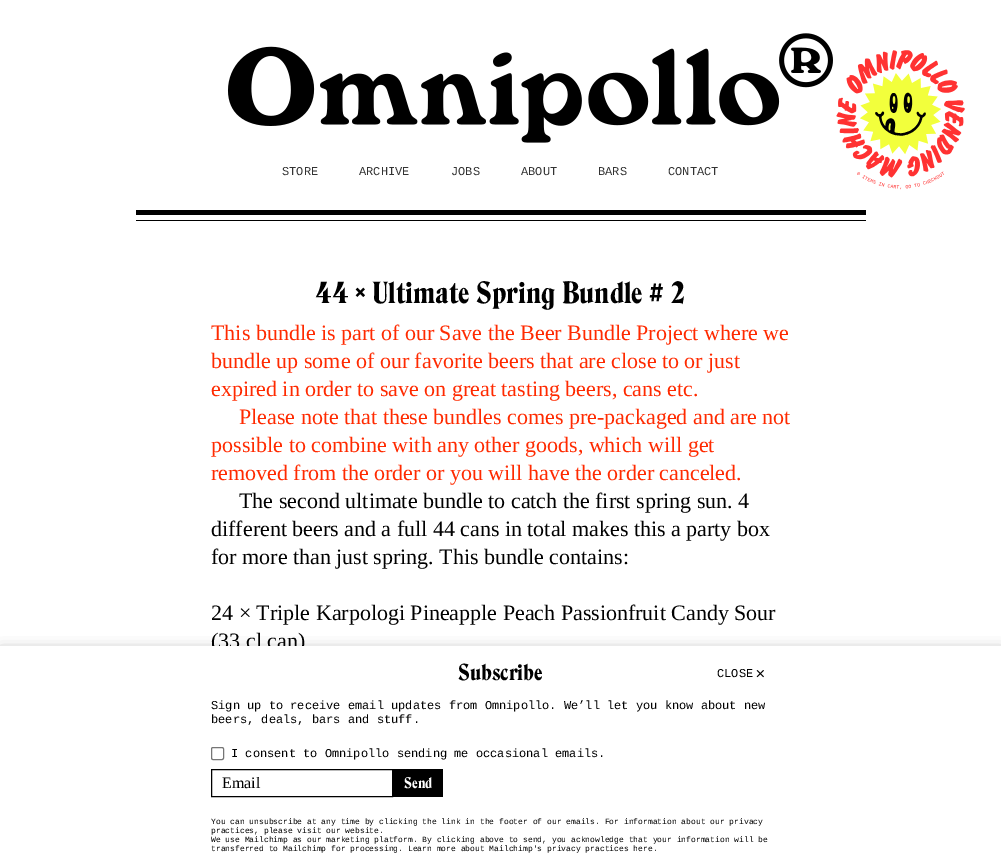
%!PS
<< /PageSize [1001 868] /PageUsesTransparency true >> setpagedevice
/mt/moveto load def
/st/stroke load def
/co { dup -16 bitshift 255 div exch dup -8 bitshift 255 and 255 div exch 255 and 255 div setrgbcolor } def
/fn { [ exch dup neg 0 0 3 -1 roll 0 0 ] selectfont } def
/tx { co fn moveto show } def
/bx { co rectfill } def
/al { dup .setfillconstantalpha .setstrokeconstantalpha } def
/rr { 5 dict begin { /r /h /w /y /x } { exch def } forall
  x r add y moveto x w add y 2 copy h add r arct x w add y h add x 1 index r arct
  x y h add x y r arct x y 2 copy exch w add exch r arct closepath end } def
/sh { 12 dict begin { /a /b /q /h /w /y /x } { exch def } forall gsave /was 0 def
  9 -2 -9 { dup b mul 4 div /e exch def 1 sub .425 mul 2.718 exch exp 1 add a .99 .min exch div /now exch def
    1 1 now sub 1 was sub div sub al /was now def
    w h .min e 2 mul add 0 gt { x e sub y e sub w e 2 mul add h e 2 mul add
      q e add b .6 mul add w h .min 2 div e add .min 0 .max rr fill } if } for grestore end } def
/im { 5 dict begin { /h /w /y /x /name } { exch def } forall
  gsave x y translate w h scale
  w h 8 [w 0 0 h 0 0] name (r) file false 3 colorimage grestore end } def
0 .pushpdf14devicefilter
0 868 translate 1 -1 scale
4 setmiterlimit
0 0 1001 868 16#FFFFFF bx
(media/1.raw) 227 33 606 110 im
(media/2.raw) 836 50 129 140 im
136 210 730 5 16#000000 bx
136 220 730 1 16#000000 bx
1 653 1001 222 0 7.5 .5 sh
(STORE) 282 175 /LiberationMono-Regular 12 16#333333 tx
(ARCHIVE) 359 175 /LiberationMono-Regular 12 16#333333 tx
(JOBS) 451 175 /LiberationMono-Regular 12 16#333333 tx
(ABOUT) 521 175 /LiberationMono-Regular 12 16#333333 tx
(BARS) 598 175 /LiberationMono-Regular 12 16#333333 tx
(CONTACT) 668 175 /LiberationMono-Regular 12 16#333333 tx
/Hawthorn-Regular 32 fn
16#000000 co
315 303 mt -3 0 32 (44 × Ultimate Spring Bundle # 2) widthshow
(This bundle is part of our Save the Beer Bundle Project where we) 211 340 /LiberationSerif-Regular 22 16#FF2A00 tx
(bundle up some of our favorite beers that are close to or just) 211 368 /LiberationSerif-Regular 22 16#FF2A00 tx
(expired in order to save on great tasting beers, cans etc.) 211 396 /LiberationSerif-Regular 22 16#FF2A00 tx
(Please note that these bundles comes pre-packaged and are not) 239 424 /LiberationSerif-Regular 22 16#FF2A00 tx
(possible to combine with any other goods, which will get) 211 452 /LiberationSerif-Regular 22 16#FF2A00 tx
(removed from the order or you will have the order canceled.) 211 480 /LiberationSerif-Regular 22 16#FF2A00 tx
(The second ultimate bundle to catch the first spring sun. 4) 239 508 /LiberationSerif-Regular 22 16#000000 tx
(different beers and a full 44 cans in total makes this a party box) 211 536 /LiberationSerif-Regular 22 16#000000 tx
(for more than just spring. This bundle contains:) 211 564 /LiberationSerif-Regular 22 16#000000 tx
(24 × Triple Karpologi Pineapple Peach Passionfruit Candy Sour) 211 620 /LiberationSerif-Regular 22 16#000000 tx
(\(33 cl can\)) 211 648 /LiberationSerif-Regular 22 16#000000 tx
0 646 1001 222 16#FFFFFF bx
(Subscribe) 458 680 /Hawthorn-Regular 24 16#000000 tx
(CLOSE) 717 677 /LiberationMono-Regular 12 16#000000 tx
(media/3.raw) 756 670 8 8 im
(Sign up to receive email updates from Omnipollo. We’ll let you know about new) 211 709 /LiberationMono-Regular 12 16#000000 tx
(beers, deals, bars and stuff.) 211 723 /LiberationMono-Regular 12 16#000000 tx
16#767676 co
211.5 747.5 12 12 1.5 rr st
(I consent to Omnipollo sending me occasional emails.) 231 757 /LiberationMono-Regular 12 16#000000 tx
211.5 769.5 181 27 rectstroke
(Email) 222 788 /LiberationSerif-Regular 16 16#000000 tx
393 769 50 28 16#000000 bx
(Send) 404 788 /Hawthorn-Regular 16 16#FFFFFF tx
(You can unsubscribe at any time by clicking the link in the footer of our emails. For information about our privacy) 211 824 /LiberationMono-Regular 8 16#000000 tx
(practices, please visit our website.) 211 833 /LiberationMono-Regular 8 16#000000 tx
(We use Mailchimp as our marketing platform. By clicking above to send, you acknowledge that your information will be) 211 842 /LiberationMono-Regular 8 16#000000 tx
(transferred to Mailchimp for processing. Learn more about Mailchimp's privacy practices here.) 211 851 /LiberationMono-Regular 8 16#000000 tx
.poppdf14devicefilter showpage
